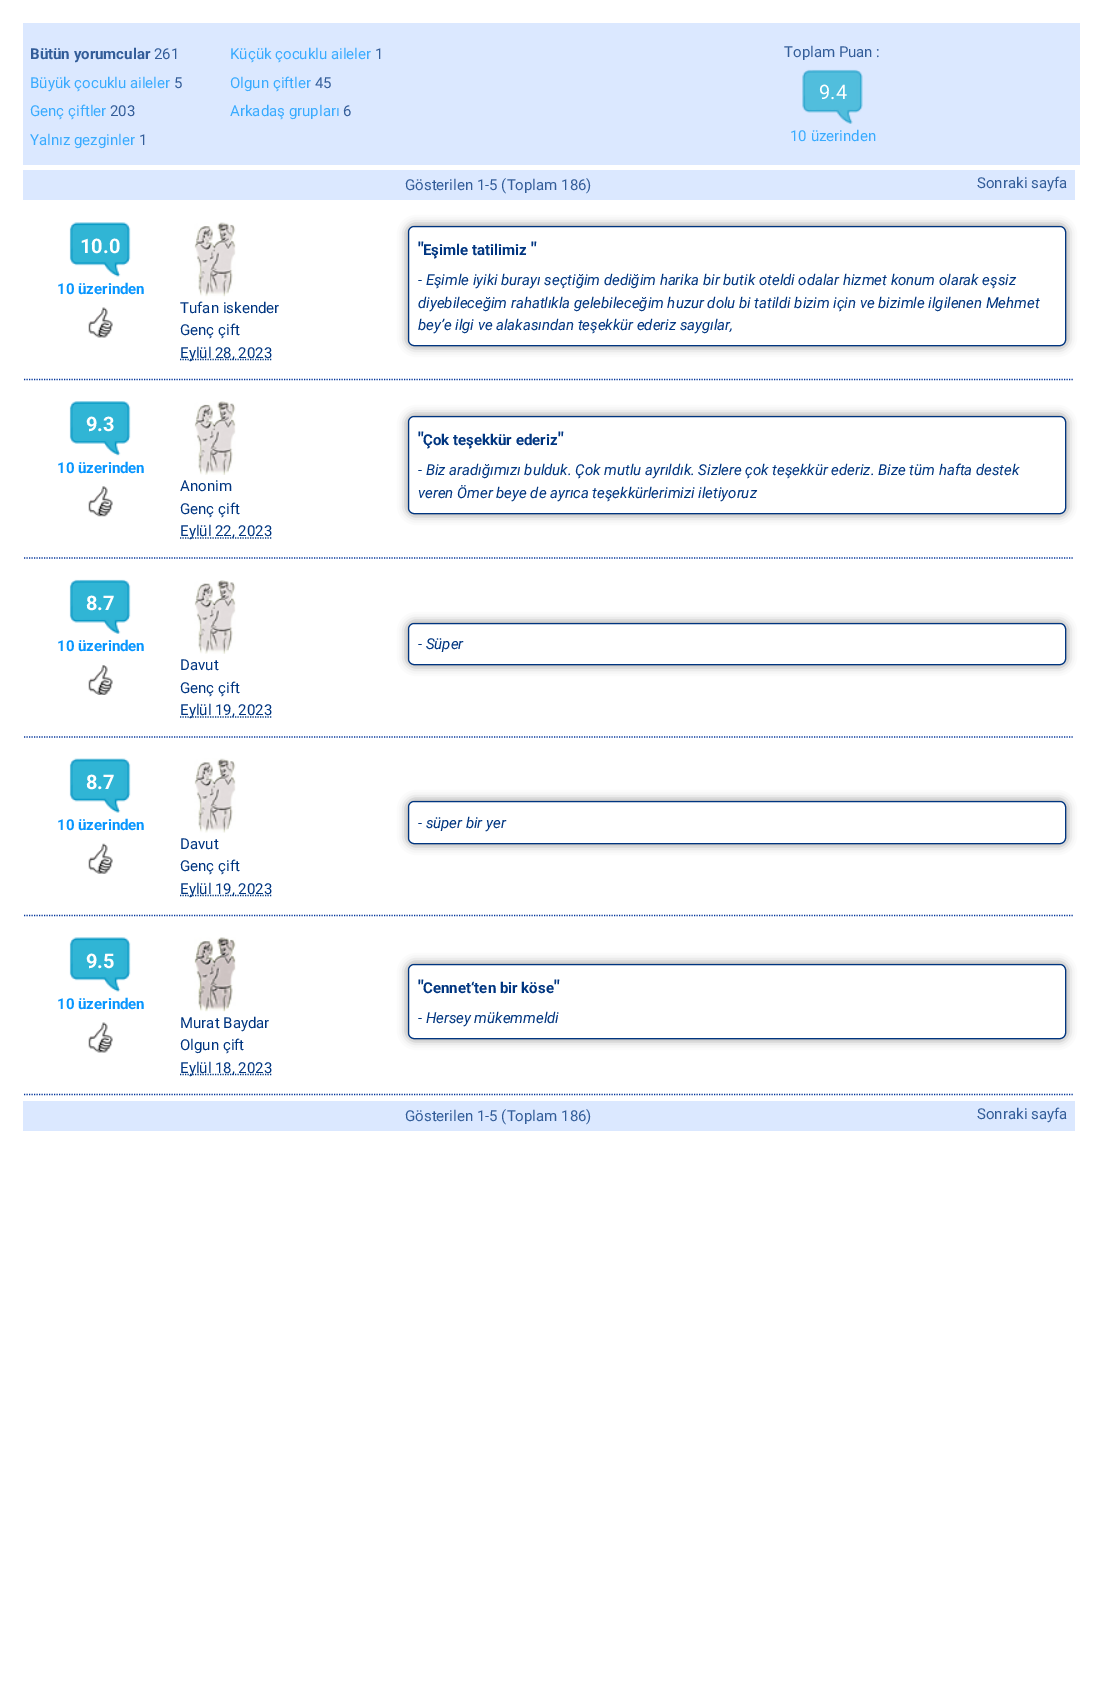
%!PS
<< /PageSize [1097 1689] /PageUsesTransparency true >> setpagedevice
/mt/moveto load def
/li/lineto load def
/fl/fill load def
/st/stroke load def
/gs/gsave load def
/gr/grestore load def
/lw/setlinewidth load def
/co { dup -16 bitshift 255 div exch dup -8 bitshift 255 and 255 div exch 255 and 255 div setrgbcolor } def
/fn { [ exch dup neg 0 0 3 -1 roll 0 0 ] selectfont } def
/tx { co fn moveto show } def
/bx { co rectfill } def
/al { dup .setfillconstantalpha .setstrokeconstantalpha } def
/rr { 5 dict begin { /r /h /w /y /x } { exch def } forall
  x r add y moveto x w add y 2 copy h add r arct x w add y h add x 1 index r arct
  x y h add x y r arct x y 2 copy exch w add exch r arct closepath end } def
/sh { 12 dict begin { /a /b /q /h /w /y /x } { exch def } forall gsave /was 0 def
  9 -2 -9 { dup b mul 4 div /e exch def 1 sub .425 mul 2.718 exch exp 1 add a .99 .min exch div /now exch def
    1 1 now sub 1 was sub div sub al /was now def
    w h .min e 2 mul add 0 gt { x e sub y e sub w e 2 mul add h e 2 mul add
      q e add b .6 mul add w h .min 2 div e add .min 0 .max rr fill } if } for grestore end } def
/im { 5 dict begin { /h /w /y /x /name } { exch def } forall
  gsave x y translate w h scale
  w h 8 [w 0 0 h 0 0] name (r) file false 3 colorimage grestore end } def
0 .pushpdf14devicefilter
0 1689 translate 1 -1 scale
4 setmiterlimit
0 0 1097 1689 16#FFFFFF bx
23 23 1057 142 16#DBE8FF bx
(media/1.raw) 802 69 61 55 im
23 170 1052 30 16#DBE8FF bx
16#003399 co
1.2 lw
[1.25 1.25] 0 setdash
24 379.5 mt 1074 379.5 li st
(media/2.raw) 69 222 62 55 im
(media/3.raw) 88 307 25 31 im
(media/4.raw) 194 222 42 75 im
16#003580 co
180 359.5 mt 272 359.5 li st
16#000000 co
408 226 658 120 6 5 .5 sh
16#FFFFFF co
408.5 226.5 657 119 5.5 rr gs fl gr
16#003580 co
1 lw
[] 0 setdash
st
16#003399 co
1.2 lw
[1.25 1.25] 0 setdash
24 558 mt 1074 558 li st
(media/5.raw) 69 401 62 55 im
(media/6.raw) 88 486 25 31 im
16#000000 co
408 416 658 98 6 5 .5 sh
16#FFFFFF co
408.5 416.5 657 97 5.5 rr gs fl gr
16#003580 co
1 lw
[] 0 setdash
st
(media/7.raw) 194 401 42 74 im
1.2 lw
[1.25 1.25] 0 setdash
180 538 mt 272 538 li st
16#003399 co
24 737 mt 1074 737 li st
(media/8.raw) 69 579 62 55 im
(media/9.raw) 88 665 25 30 im
16#000000 co
408 623 658 42 6 5 .5 sh
16#FFFFFF co
408.5 623.5 657 41 5.5 rr gs fl gr
16#003580 co
1 lw
[] 0 setdash
st
(media/10.raw) 194 580 42 74 im
1.2 lw
[1.25 1.25] 0 setdash
180 717 mt 272 717 li st
16#003399 co
24 915.5 mt 1074 915.5 li st
(media/11.raw) 69 758 62 55 im
(media/12.raw) 88 843 25 31 im
16#000000 co
408 801 658 43 6 5 .5 sh
16#FFFFFF co
408.5 801.5 657 42 5.5 rr gs fl gr
16#003580 co
1 lw
[] 0 setdash
st
(media/13.raw) 194 758 42 75 im
1.2 lw
[1.25 1.25] 0 setdash
180 895.5 mt 272 895.5 li st
16#003399 co
24 1094.5 mt 1074 1094.5 li st
(media/2.raw) 69 937 62 55 im
(media/14.raw) 88 1022 25 31 im
16#000000 co
408 964 658 75 6 5 .5 sh
16#FFFFFF co
408.5 964.5 657 74 5.5 rr gs fl gr
16#003580 co
1 lw
[] 0 setdash
st
(media/15.raw) 194 937 42 75 im
1.2 lw
[1.25 1.25] 0 setdash
180 1074.5 mt 272 1074.5 li st
23 1101 1052 30 16#DBE8FF bx
(Bütün yorumcular) 30 59 /Roboto-Bold 15 16#335D99 tx
(261) 154 59 /Roboto-Regular 15 16#335D99 tx
(Küçük çocuklu aileler) 230 59 /Roboto-Regular 15 16#39ABFF tx
(1) 375 59 /Roboto-Regular 15 16#335D99 tx
(Büyük çocuklu aileler) 30 88 /Roboto-Regular 15 16#39ABFF tx
(5) 174 88 /Roboto-Regular 15 16#335D99 tx
(Olgun çiftler) 230 88 /Roboto-Regular 15 16#39ABFF tx
(45) 315 88 /Roboto-Regular 15 16#335D99 tx
(Genç çiftler) 30 116 /Roboto-Regular 15 16#39ABFF tx
(203) 110 116 /Roboto-Regular 15 16#335D99 tx
(Arkadaş grupları) 230 116 /Roboto-Regular 15 16#39ABFF tx
(6) 343 116 /Roboto-Regular 15 16#335D99 tx
(Yalnız gezginler) 30 145 /Roboto-Regular 15 16#39ABFF tx
(1) 139 145 /Roboto-Regular 15 16#335D99 tx
(Toplam Puan :) 784 57 /Roboto-Regular 15 16#335D99 tx
(9.4) 819 99 /Roboto-Regular 20 16#FFFFFF tx
(10 üzerinden) 790 141 /Roboto-Regular 15 16#39ABFF tx
(Gösterilen 1-5 \(Toplam 186\)) 405 190 /Roboto-Regular 15 16#335D99 tx
(Sonraki sayfa) 977 188 /Roboto-Regular 15 16#335D99 tx
(10.0) 80 253 /Roboto-Bold 20 16#FFFFFF tx
(10 üzerinden) 57 294 /Roboto-Bold 15 16#0896FF tx
(Tufan iskender) 180 313 /Roboto-Regular 15 16#003580 tx
(Genç çift) 180 335 /Roboto-Regular 15 16#003580 tx
(Eylül 28, 2023) 180 358 /Roboto-Regular 15 16#003580 tx
(") 418 255 /Roboto-Bold 18 16#003580 tx
(Eşimle tatilimiz) 423 255 /Roboto-Bold 15 16#003580 tx
(") 531 255 /Roboto-Bold 18 16#003580 tx
(- Eşimle iyiki burayı seçtiğim dediğim harika bir butik oteldi odalar hizmet konum olarak eşsiz) 418 285 /Roboto-Italic 15 16#003580 tx
(diyebileceğim rahatlıkla gelebileceğim huzur dolu bi tatildi bizim için ve bizimle ilgilenen Mehmet) 418 308 /Roboto-Italic 15 16#003580 tx
(bey’e ilgi ve alakasından teşekkür ederiz saygılar,) 418 330 /Roboto-Italic 15 16#003580 tx
(9.3) 86 431 /Roboto-Bold 20 16#FFFFFF tx
(10 üzerinden) 57 473 /Roboto-Bold 15 16#0896FF tx
(") 418 445 /Roboto-Bold 18 16#003580 tx
(Çok teşekkür ederiz) 423 445 /Roboto-Bold 15 16#003580 tx
(") 558 445 /Roboto-Bold 18 16#003580 tx
(- Biz aradığımızı bulduk. Çok mutlu ayrıldık. Sizlere çok teşekkür ederiz. Bize tüm hafta destek) 418 475 /Roboto-Italic 15 16#003580 tx
(veren Ömer beye de ayrıca teşekkürlerimizi iletiyoruz) 418 498 /Roboto-Italic 15 16#003580 tx
(Anonim) 180 491 /Roboto-Regular 15 16#003580 tx
(Genç çift) 180 514 /Roboto-Regular 15 16#003580 tx
(Eylül 22, 2023) 180 536 /Roboto-Regular 15 16#003580 tx
(8.7) 86 610 /Roboto-Bold 20 16#FFFFFF tx
(10 üzerinden) 57 651 /Roboto-Bold 15 16#0896FF tx
(- Süper) 418 649 /Roboto-Italic 15 16#003580 tx
(Davut) 180 670 /Roboto-Regular 15 16#003580 tx
(Genç çift) 180 693 /Roboto-Regular 15 16#003580 tx
(Eylül 19, 2023) 180 715 /Roboto-Regular 15 16#003580 tx
(8.7) 86 789 /Roboto-Bold 20 16#FFFFFF tx
(10 üzerinden) 57 830 /Roboto-Bold 15 16#0896FF tx
(- süper bir yer) 418 828 /Roboto-Italic 15 16#003580 tx
(Davut) 180 849 /Roboto-Regular 15 16#003580 tx
(Genç çift) 180 871 /Roboto-Regular 15 16#003580 tx
(Eylül 19, 2023) 180 894 /Roboto-Regular 15 16#003580 tx
(9.5) 86 968 /Roboto-Bold 20 16#FFFFFF tx
(10 üzerinden) 57 1009 /Roboto-Bold 15 16#0896FF tx
(") 418 993 /Roboto-Bold 18 16#003580 tx
(Cennet‘ten bir köse) 423 993 /Roboto-Bold 15 16#003580 tx
(") 554 993 /Roboto-Bold 18 16#003580 tx
(- Hersey mükemmeldi) 418 1023 /Roboto-Italic 15 16#003580 tx
(Murat Baydar) 180 1028 /Roboto-Regular 15 16#003580 tx
(Olgun çift) 180 1050 /Roboto-Regular 15 16#003580 tx
(Eylül 18, 2023) 180 1073 /Roboto-Regular 15 16#003580 tx
(Gösterilen 1-5 \(Toplam 186\)) 405 1121 /Roboto-Regular 15 16#335D99 tx
(Sonraki sayfa) 977 1119 /Roboto-Regular 15 16#335D99 tx
.poppdf14devicefilter showpage
